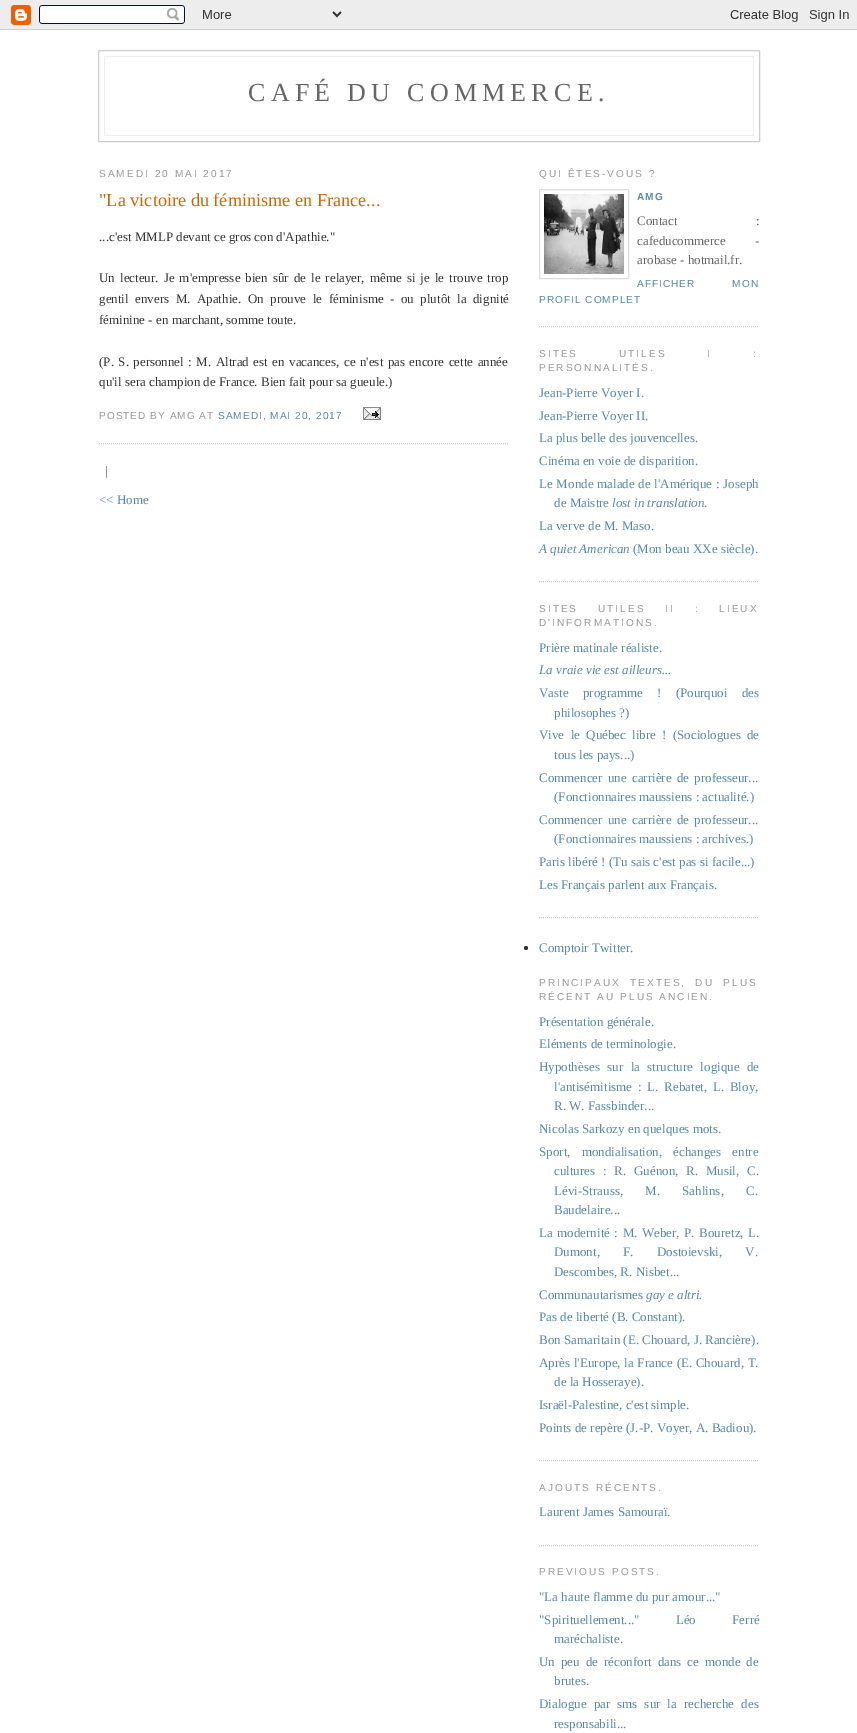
%!PS
<< /PageSize [857 1733] >> setpagedevice
/mt/moveto load def
/li/lineto load def
/fl/fill load def
/st/stroke load def
/co { dup -16 bitshift 255 div exch dup -8 bitshift 255 and 255 div exch 255 and 255 div setrgbcolor } def
/fn { [ exch dup neg 0 0 3 -1 roll 0 0 ] selectfont } def
/tx { co fn moveto show } def
/bx { co rectfill } def
/ci { newpath 0 360 arc closepath } def
/im { 5 dict begin { /h /w /y /x /name } { exch def } forall
  gsave x y translate w h scale
  w h 8 [w 0 0 h 0 0] name (r) file false 3 colorimage grestore end } def
0 1733 translate 1 -1 scale
4 setmiterlimit
0 0 857 1733 16#FFFFFF bx
(media/1.raw) 0 0 857 30 im
16#CCCCCC co
98.5 50.5 661 91 rectstroke
104 56 650 1 16#EEEEEE bx
753 56 1 80 16#EEEEEE bx
104 56 1 59 16#EEEEEE bx
104 135 650 1 16#EEEEEE bx
104 115 1 21 16#EEEEEE bx
16#CCCCCC co
[1 1] 0 setdash
99 443.5 mt 509 443.5 li st
(media/2.raw) 363 407 18 13 im
539 326.5 mt 759 326.5 li st
16#DDDDDD co
[] 0 setdash
539.5 189.5 89 89 rectstroke
(media/3.raw) 544 194 80 80 im
16#CCCCCC co
[1 1] 0 setdash
539 581.5 mt 759 581.5 li st
539 917.5 mt 759 917.5 li st
16#333333 co
526 948 2 ci fl
16#CCCCCC co
539 1460.5 mt 759 1460.5 li st
539 1545.5 mt 759 1545.5 li st
/LiberationSerif-Regular 26 fn
16#666666 co
248 101 mt 5.25 0 (CAFÉ DU COMMERCE.) ashow
/LiberationSans-Regular 10.1 fn
16#999999 co
99 177 mt 2 0 (SAMEDI 20 MAI 2017) ashow
("La victoire du féminisme en France...) 99 206 /LiberationSerif-Regular 18.25 16#CC6600 tx
(...c'est MMLP devant ce gros con d'Apathie.") 99 241 /LiberationSerif-Regular 13 16#333333 tx
99 282 mt 1.8 0 32 (Un lecteur. Je m'empresse bien sûr de le relayer, même si je le trouve trop) widthshow
99 303 mt 3.25 0 32 (gentil envers M. Apathie. On prouve le féminisme - ou plutôt la dignité) widthshow
(féminine - en marchant, somme toute.) 99 324 /LiberationSerif-Regular 13 16#333333 tx
99 366 mt 1.25 0 32 (\(P. S. personnel : M. Altrad est en vacances, ce n'est pas encore cette année) widthshow
(qu'il sera champion de France. Bien fait pour sa gueule.\)) 99 386 /LiberationSerif-Regular 13 16#333333 tx
/LiberationSans-Regular 10.1 fn
16#999999 co
99 419 mt 1 0 (POSTED BY AMG AT) ashow
16#5588AA co
218 419 mt 1 0 (SAMEDI, MAI 20, 2017) ashow
(|) 105 475 /LiberationSerif-Regular 13 16#333333 tx
(<< Home) 99 504 /LiberationSerif-Regular 13 16#5588AA tx
/LiberationSans-Regular 10.1 fn
16#999999 co
539 177 mt 2 0 (QUI ÊTES-VOUS ?) ashow
/LiberationSans-Bold 10.1 fn
16#5588AA co
637 200 mt 1 0 (AMG) ashow
/LiberationSerif-Regular 13 fn
16#666666 co
637 225 mt 75 0 32 (Contact :) widthshow
637 245 mt 26 0 32 (cafeducommerce -) widthshow
(arobase - hotmail.fr.) 637 264 /LiberationSerif-Regular 13 16#666666 tx
/LiberationSans-Regular 10.1 fn
16#5588AA co
637 287 mt 33 0 32 1 0 (AFFICHER MON) awidthshow
539 303 mt 1 0 (PROFIL COMPLET) ashow
16#999999 co
539 357 mt 36 0 32 2 0 (SITES UTILES I :) awidthshow
539 371 mt 2 0 (PERSONNALITÉS.) ashow
(Jean-Pierre Voyer I.) 539 397 /LiberationSerif-Regular 13 16#5588AA tx
(Jean-Pierre Voyer II.) 539 420 /LiberationSerif-Regular 13 16#5588AA tx
(La plus belle des jouvencelles.) 539 442 /LiberationSerif-Regular 13 16#5588AA tx
(Cinéma en voie de disparition.) 539 465 /LiberationSerif-Regular 13 16#5588AA tx
539 488 mt .5 0 32 (Le Monde malade de l'Amérique : Joseph) widthshow
(de Maistre) 554 507 /LiberationSerif-Regular 13 16#5588AA tx
(lost in translation) 612 507 /LiberationSerif-Italic 13 16#5588AA tx
(.) 704 507 /LiberationSerif-Regular 13 16#5588AA tx
(La verve de M. Maso.) 539 530 /LiberationSerif-Regular 13 16#5588AA tx
(A quiet American) 539 553 /LiberationSerif-Italic 13 16#5588AA tx
(\(Mon beau XXe siècle\).) 633 553 /LiberationSerif-Regular 13 16#5588AA tx
/LiberationSans-Regular 10.1 fn
16#999999 co
539 612 mt 15 0 32 2 0 (SITES UTILES II : LIEUX) awidthshow
539 626 mt 2 0 (D'INFORMATIONS.) ashow
(Prière matinale réaliste.) 539 652 /LiberationSerif-Regular 13 16#5588AA tx
(La vraie vie est ailleurs...) 539 674 /LiberationSerif-Italic 13 16#5588AA tx
/LiberationSerif-Regular 13 fn
539 697 mt 11 0 32 (Vaste programme ! \(Pourquoi des) widthshow
(philosophes ?\)) 554 717 /LiberationSerif-Regular 13 16#5588AA tx
539 739 mt 3 0 32 (Vive le Québec libre ! \(Sociologues de) widthshow
(tous les pays...\)) 554 759 /LiberationSerif-Regular 13 16#5588AA tx
539 782 mt 2 0 32 (Commencer une carrière de professeur...) widthshow
(\(Fonctionnaires maussiens : actualité.\)) 554 801 /LiberationSerif-Regular 13 16#5588AA tx
539 824 mt 2 0 32 (Commencer une carrière de professeur...) widthshow
(\(Fonctionnaires maussiens : archives.\)) 554 843 /LiberationSerif-Regular 13 16#5588AA tx
(Paris libéré ! \(Tu sais c'est pas si facile...\)) 539 866 /LiberationSerif-Regular 13 16#5588AA tx
(Les Français parlent aux Français.) 539 889 /LiberationSerif-Regular 13 16#5588AA tx
(Comptoir Twitter.) 539 952 /LiberationSerif-Regular 13 16#5588AA tx
/LiberationSans-Regular 10.1 fn
16#999999 co
539 986 mt 4.5 0 32 2 0 (PRINCIPAUX TEXTES, DU PLUS) awidthshow
539 1000 mt 2 0 (RÉCENT AU PLUS ANCIEN.) ashow
(Présentation générale.) 539 1026 /LiberationSerif-Regular 13 16#5588AA tx
(Eléments de terminologie.) 539 1048 /LiberationSerif-Regular 13 16#5588AA tx
539 1071 mt 4.25 0 32 (Hypothèses sur la structure logique de) widthshow
554 1091 mt 2.5 0 32 (l'antisémitisme : L. Rebatet, L. Bloy,) widthshow
(R. W. Fassbinder...) 554 1110 /LiberationSerif-Regular 13 16#5588AA tx
(Nicolas Sarkozy en quelques mots.) 539 1133 /LiberationSerif-Regular 13 16#5588AA tx
539 1156 mt 8 0 32 (Sport, mondialisation, échanges entre) widthshow
554 1175 mt 4.5 0 32 (cultures : R. Guénon, R. Musil, C.) widthshow
554 1195 mt 19 0 32 (Lévi-Strauss, M. Sahlins, C.) widthshow
(Baudelaire...) 554 1214 /LiberationSerif-Regular 13 16#5588AA tx
539 1237 mt 1.25 0 32 (La modernité : M. Weber, P. Bouretz, L.) widthshow
554 1256 mt 20 0 32 (Dumont, F. Dostoievski, V.) widthshow
(Descombes, R. Nisbet...) 554 1276 /LiberationSerif-Regular 13 16#5588AA tx
(Communautarismes) 539 1299 /LiberationSerif-Regular 13 16#5588AA tx
(gay e altri.) 646 1299 /LiberationSerif-Italic 13 16#5588AA tx
(Pas de liberté \(B. Constant\).) 539 1321 /LiberationSerif-Regular 13 16#5588AA tx
(Bon Samaritain \(E. Chouard, J. Rancière\).) 539 1344 /LiberationSerif-Regular 13 16#5588AA tx
539 1367 mt .5 0 32 (Après l'Europe, la France \(E. Chouard, T.) widthshow
(de la Hosseraye\).) 554 1386 /LiberationSerif-Regular 13 16#5588AA tx
(Israël-Palestine, c'est simple.) 539 1409 /LiberationSerif-Regular 13 16#5588AA tx
(Points de repère \(J.-P. Voyer, A. Badiou\).) 539 1432 /LiberationSerif-Regular 13 16#5588AA tx
/LiberationSans-Regular 10.1 fn
16#999999 co
539 1491 mt 2 0 (AJOUTS RÉCENTS.) ashow
(Laurent James Samouraï.) 539 1516 /LiberationSerif-Regular 13 16#5588AA tx
/LiberationSans-Regular 10.1 fn
16#999999 co
539 1575 mt 2 0 (PREVIOUS POSTS.) ashow
("La haute flamme du pur amour...") 539 1601 /LiberationSerif-Regular 13 16#5588AA tx
539 1624 mt 33 0 32 ("Spirituellement..." Léo Ferré) widthshow
(maréchaliste.) 554 1643 /LiberationSerif-Regular 13 16#5588AA tx
539 1666 mt 2.75 0 32 (Un peu de réconfort dans ce monde de) widthshow
(brutes.) 554 1685 /LiberationSerif-Regular 13 16#5588AA tx
539 1708 mt 3.75 0 32 (Dialogue par sms sur la recherche des) widthshow
(responsabili...) 554 1728 /LiberationSerif-Regular 13 16#5588AA tx
showpage
